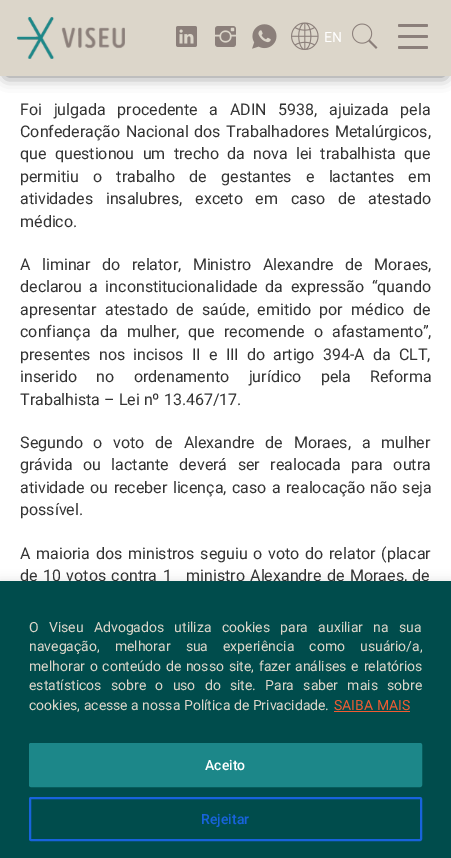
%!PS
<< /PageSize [451 858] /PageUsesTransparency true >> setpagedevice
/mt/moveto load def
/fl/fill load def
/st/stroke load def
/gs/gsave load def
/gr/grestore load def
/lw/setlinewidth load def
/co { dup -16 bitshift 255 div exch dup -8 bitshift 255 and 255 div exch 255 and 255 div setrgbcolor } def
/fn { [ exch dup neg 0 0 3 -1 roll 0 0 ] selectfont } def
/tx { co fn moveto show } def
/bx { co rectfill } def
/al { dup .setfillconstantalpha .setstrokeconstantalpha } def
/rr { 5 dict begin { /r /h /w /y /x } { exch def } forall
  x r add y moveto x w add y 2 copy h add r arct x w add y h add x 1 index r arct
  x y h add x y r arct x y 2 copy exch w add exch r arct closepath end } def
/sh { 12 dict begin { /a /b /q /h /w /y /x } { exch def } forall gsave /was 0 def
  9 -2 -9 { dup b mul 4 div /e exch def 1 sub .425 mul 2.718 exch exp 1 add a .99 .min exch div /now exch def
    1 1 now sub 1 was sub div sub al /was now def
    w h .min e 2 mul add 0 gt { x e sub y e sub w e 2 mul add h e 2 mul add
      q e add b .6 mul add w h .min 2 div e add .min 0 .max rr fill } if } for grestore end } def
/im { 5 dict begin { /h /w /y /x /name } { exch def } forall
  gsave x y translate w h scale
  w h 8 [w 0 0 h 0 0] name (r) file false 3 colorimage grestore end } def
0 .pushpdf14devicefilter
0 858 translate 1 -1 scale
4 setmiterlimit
0 0 451 858 16#FFFFFF bx
16#000000 co
6 12 439 64 0 7.5 .52 sh
0 0 451 76 16#DCD6CA bx
(media/1.raw) 17 17 108 42 im
(media/2.raw) 176 26 21 21 im
(media/3.raw) 215 26 21 21 im
(media/4.raw) 252 24 25 25 im
(media/5.raw) 291 22 28 28 im
(media/6.raw) 352 23 26 26 im
16#8B7F7A co
398 24 30 3 1.5 rr fl
398 35 30 3 1.5 rr fl
398 46 30 3 1.5 rr fl
16#ACABAB co
0 580 451 277 0 5 .3 sh
(EN) 324 42 /Roboto-Regular 14 16#FFFFFF tx
/Roboto-Regular 16 fn
16#333333 co
20 115 mt 7.75 0 32 (Foi julgada procedente a ADIN 5938, ajuizada pela) widthshow
20 137 mt 1.5 0 32 (Confederação Nacional dos Trabalhadores Metalúrgicos,) widthshow
20 159 mt 4.25 0 32 (que questionou um trecho da nova lei trabalhista que) widthshow
20 182 mt 10.25 0 32 (permitiu o trabalho de gestantes e lactantes em) widthshow
20 204 mt 8.75 0 32 (atividades insalubres, exceto em caso de atestado) widthshow
(médico.) 20 227 /Roboto-Regular 16 16#333333 tx
20 270 mt 7.5 0 32 (A liminar do relator, Ministro Alexandre de Moraes,) widthshow
20 292 mt 3.5 0 32 (declarou a inconstitucionalidade da expressão “quando) widthshow
20 315 mt 4.5 0 32 (apresentar atestado de saúde, emitido por médico de) widthshow
20 337 mt 5.25 0 32 (confiança da mulher, que recomende o afastamento”,) widthshow
20 360 mt 4.25 0 32 (presentes nos incisos II e III do artigo 394-A da CLT,) widthshow
20 382 mt 15.5 0 32 (inserido no ordenamento jurídico pela Reforma) widthshow
(Trabalhista – Lei nº 13.467/17.) 20 405 /Roboto-Regular 16 16#333333 tx
20 448 mt 6.75 0 32 (Segundo o voto de Alexandre de Moraes, a mulher) widthshow
20 470 mt 6.5 0 32 (grávida ou lactante deverá ser realocada para outra) widthshow
20 493 mt 1.5 0 32 (atividade ou receber licença, caso a realocação não seja) widthshow
(possível.) 20 515 /Roboto-Regular 16 16#333333 tx
20 559 mt 1.75 0 32 (A maioria dos ministros seguiu o voto do relator \(placar) widthshow
20 581 mt 1.5 0 32 (de 10 votos contra 1) widthshow
186 581 mt 1.5 0 32 (ministro Alexandre de Moraes, de) widthshow
0 581 451 277 16#004C4C bx
/Roboto-Regular 14 fn
16#DCD6CA co
29 632 mt 6.75 0 32 (O Viseu Advogados utiliza cookies para auxiliar na sua) widthshow
29 651 mt 11.5 0 32 (navegação, melhorar sua experiência como usuário/a,) widthshow
29 671 mt 1.25 0 32 (melhorar o conteúdo de nosso site, fazer análises e relatórios) widthshow
29 690 mt 5.75 0 32 (estatísticos sobre o uso do site. Para saber mais sobre) widthshow
(cookies, acesse a nossa Política de Privacidade.) 29 710 /Roboto-Regular 14 16#DCD6CA tx
(SAIBA MAIS) 334 710 /Roboto-Regular 14 16#EF5B32 tx
334 711 76 1 16#EF5B32 bx
16#1C8789 co
30 744 391 42 1 rr gs fl gr
2 lw
st
(Aceito) 205 770 /Roboto-Medium 14 16#FFFFFF tx
16#1863DC co
30 798 391 42 1 rr st
(Rejeitar) 201 824 /Roboto-Medium 14 16#1863DC tx
.poppdf14devicefilter showpage
